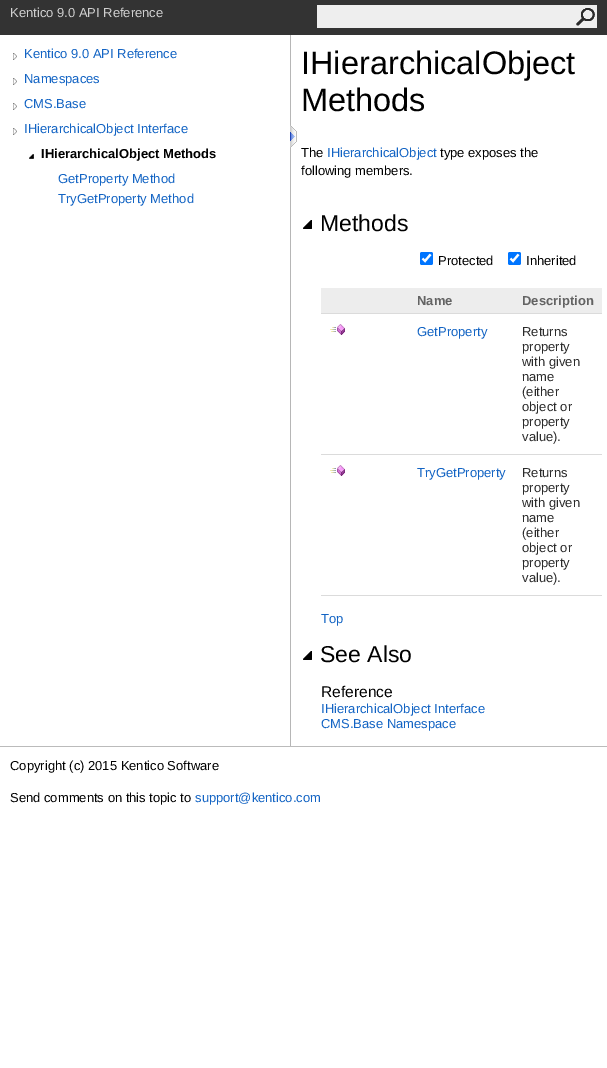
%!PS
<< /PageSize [607 1068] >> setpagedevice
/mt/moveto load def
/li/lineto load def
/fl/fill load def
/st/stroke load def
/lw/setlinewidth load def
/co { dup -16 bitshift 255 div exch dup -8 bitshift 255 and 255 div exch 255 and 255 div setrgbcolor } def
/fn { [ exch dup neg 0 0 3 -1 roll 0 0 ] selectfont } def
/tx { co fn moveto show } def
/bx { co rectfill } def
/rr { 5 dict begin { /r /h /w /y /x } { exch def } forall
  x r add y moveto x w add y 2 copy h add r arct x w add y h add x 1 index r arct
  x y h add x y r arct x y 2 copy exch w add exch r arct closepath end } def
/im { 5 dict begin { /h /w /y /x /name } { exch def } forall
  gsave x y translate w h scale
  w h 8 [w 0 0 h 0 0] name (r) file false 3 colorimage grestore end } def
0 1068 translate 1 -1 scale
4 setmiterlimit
0 0 607 1068 16#FFFFFF bx
0 0 607 35 16#333333 bx
317 5 280 23 16#EEEEEE bx
(media/1.raw) 576 8 19 18 im
290 35 1 711 16#B6B6B6 bx
(media/2.raw) 13 53 4 7 im
(media/2.raw) 13 78 4 7 im
(media/2.raw) 13 103 4 7 im
(media/2.raw) 13 128 4 7 im
(media/3.raw) 29 154 5 5 im
(media/4.raw) 290 125 7 23 im
(media/5.raw) 303 220 9 9 im
16#0075FF co
420 252 13 13 2 rr fl
16#FFFFFF co
2.1 lw
422.5 258.5 mt 425 261 li 430.5 254.5 li st
16#0075FF co
508 252 13 13 2 rr fl
16#FFFFFF co
510.5 258.5 mt 513 261 li 518.5 254.5 li st
321 288 281 25 16#EDEDED bx
321 313 281 1 16#DBDBDB bx
(media/6.raw) 330 324 15 11 im
321 454 281 1 16#DBDBDB bx
(media/6.raw) 330 465 15 11 im
321 595 281 1 16#DBDBDB bx
(media/5.raw) 303 651 9 9 im
0 746 607 1 16#BBBBBB bx
(Kentico 9.0 API Reference) 10 17 /LiberationSans-Regular 13 16#D0D0D0 tx
(Kentico 9.0 API Reference) 24 58 /LiberationSans-Regular 13 16#1364C4 tx
(Namespaces) 24 83 /LiberationSans-Regular 13 16#1364C4 tx
(CMS.Base) 24 108 /LiberationSans-Regular 13 16#1364C4 tx
(IHierarchicalObject Interface) 24 133 /LiberationSans-Regular 13 16#1364C4 tx
(IHierarchicalObject Methods) 41 158 /LiberationSans-Bold 13 16#000000 tx
(GetProperty Method) 58 183 /LiberationSans-Regular 13 16#1364C4 tx
(TryGetProperty Method) 58 203 /LiberationSans-Regular 13 16#1364C4 tx
(IHierarchicalObject) 301 74 /LiberationSans-Regular 32.5 16#000000 tx
(Methods) 301 111 /LiberationSans-Regular 32.5 16#000000 tx
(The) 301 157 /LiberationSans-Regular 13 16#000000 tx
(IHierarchicalObject) 327 157 /LiberationSans-Regular 13 16#1364C4 tx
(type exposes the) 440 157 /LiberationSans-Regular 13 16#000000 tx
(following members.) 301 175 /LiberationSans-Regular 13 16#000000 tx
(Methods) 320 231 /LiberationSans-Regular 23 16#000000 tx
(Protected) 438 265 /LiberationSans-Regular 13 16#000000 tx
(Inherited) 526 265 /LiberationSans-Regular 13 16#000000 tx
(Name) 417 305 /LiberationSans-Bold 13 16#636363 tx
(Description) 522 305 /LiberationSans-Bold 13 16#636363 tx
(GetProperty) 417 336 /LiberationSans-Regular 13 16#1364C4 tx
(Returns) 522 336 /LiberationSans-Regular 13 16#2A2A2A tx
(property) 522 351 /LiberationSans-Regular 13 16#2A2A2A tx
(with given) 522 366 /LiberationSans-Regular 13 16#2A2A2A tx
(name) 522 381 /LiberationSans-Regular 13 16#2A2A2A tx
(\(either) 522 396 /LiberationSans-Regular 13 16#2A2A2A tx
(object or) 522 411 /LiberationSans-Regular 13 16#2A2A2A tx
(property) 522 426 /LiberationSans-Regular 13 16#2A2A2A tx
(value\).) 522 441 /LiberationSans-Regular 13 16#2A2A2A tx
(TryGetProperty) 417 477 /LiberationSans-Regular 13 16#1364C4 tx
(Returns) 522 477 /LiberationSans-Regular 13 16#2A2A2A tx
(property) 522 492 /LiberationSans-Regular 13 16#2A2A2A tx
(with given) 522 507 /LiberationSans-Regular 13 16#2A2A2A tx
(name) 522 522 /LiberationSans-Regular 13 16#2A2A2A tx
(\(either) 522 537 /LiberationSans-Regular 13 16#2A2A2A tx
(object or) 522 552 /LiberationSans-Regular 13 16#2A2A2A tx
(property) 522 567 /LiberationSans-Regular 13 16#2A2A2A tx
(value\).) 522 582 /LiberationSans-Regular 13 16#2A2A2A tx
(Top) 321 623 /LiberationSans-Regular 13 16#1364C4 tx
(See Also) 320 662 /LiberationSans-Regular 23 16#000000 tx
(Reference) 321 697 /LiberationSans-Regular 15.5 16#000000 tx
(IHierarchicalObject Interface) 321 713 /LiberationSans-Regular 13 16#1364C4 tx
(CMS.Base Namespace) 321 728 /LiberationSans-Regular 13 16#1364C4 tx
(Copyright \(c\) 2015 Kentico Software) 10 770 /LiberationSans-Regular 13 16#000000 tx
(Send comments on this topic to) 10 802 /LiberationSans-Regular 13 16#000000 tx
(support@kentico.com) 195 802 /LiberationSans-Regular 13 16#1364C4 tx
showpage
